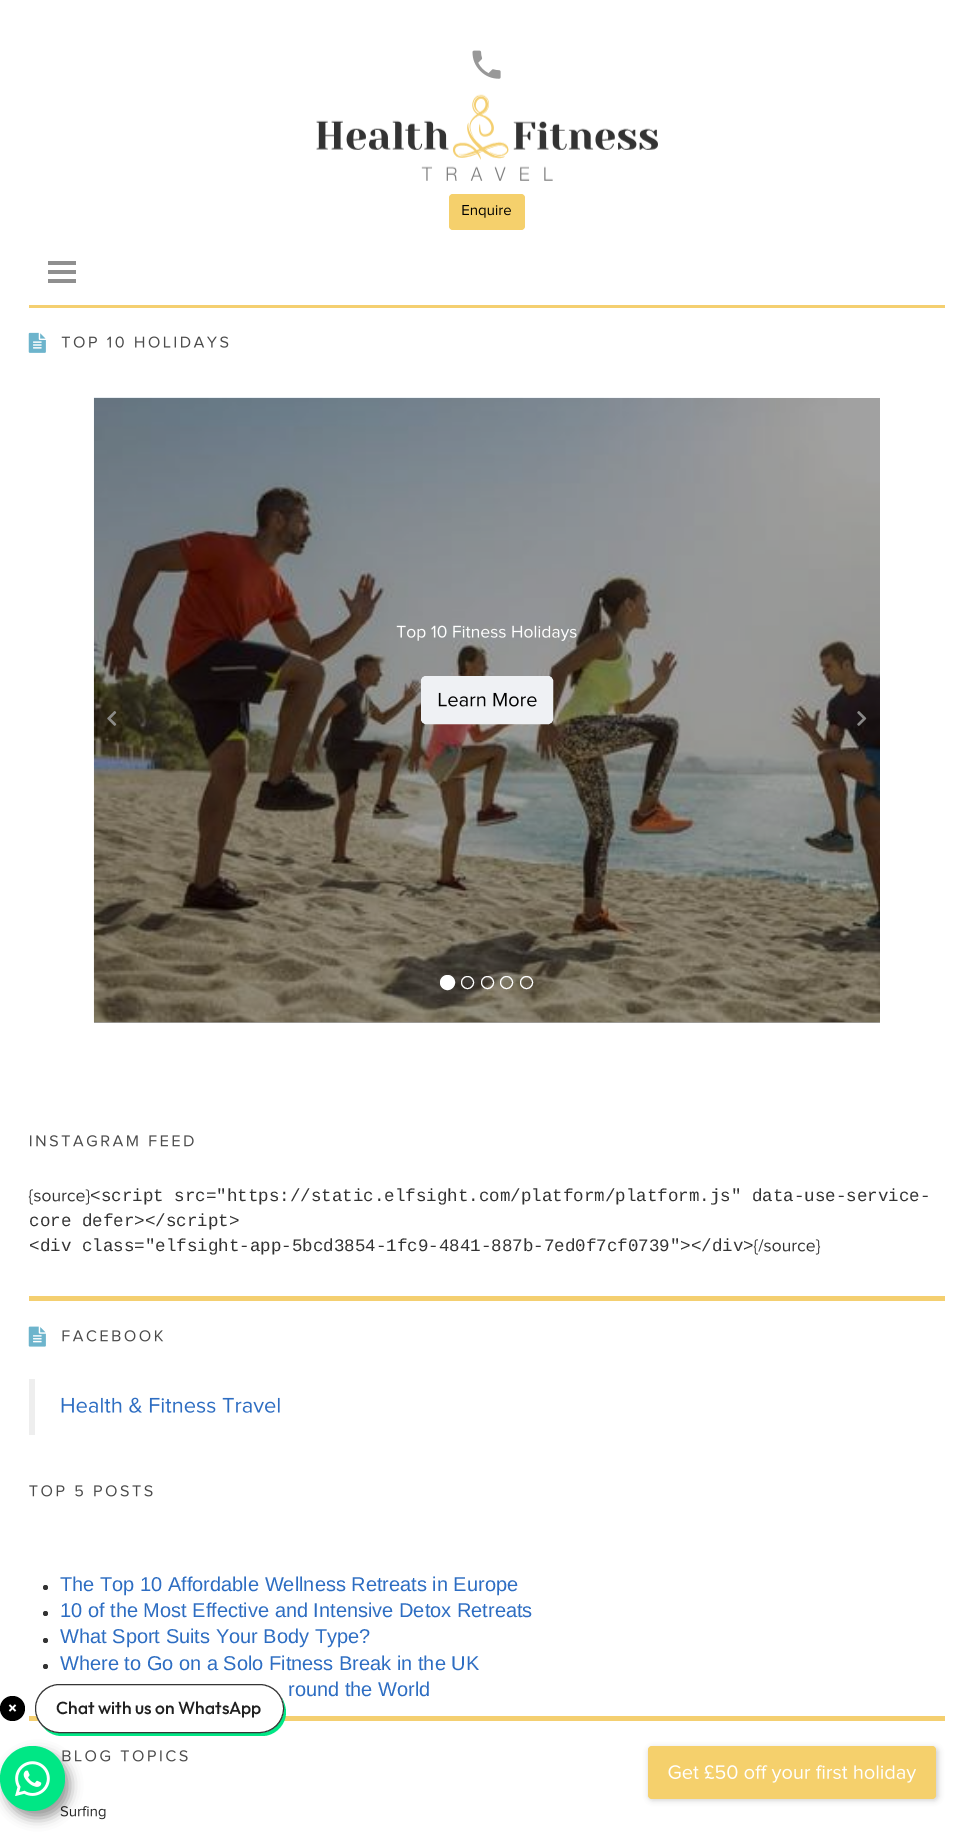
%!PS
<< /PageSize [973 1836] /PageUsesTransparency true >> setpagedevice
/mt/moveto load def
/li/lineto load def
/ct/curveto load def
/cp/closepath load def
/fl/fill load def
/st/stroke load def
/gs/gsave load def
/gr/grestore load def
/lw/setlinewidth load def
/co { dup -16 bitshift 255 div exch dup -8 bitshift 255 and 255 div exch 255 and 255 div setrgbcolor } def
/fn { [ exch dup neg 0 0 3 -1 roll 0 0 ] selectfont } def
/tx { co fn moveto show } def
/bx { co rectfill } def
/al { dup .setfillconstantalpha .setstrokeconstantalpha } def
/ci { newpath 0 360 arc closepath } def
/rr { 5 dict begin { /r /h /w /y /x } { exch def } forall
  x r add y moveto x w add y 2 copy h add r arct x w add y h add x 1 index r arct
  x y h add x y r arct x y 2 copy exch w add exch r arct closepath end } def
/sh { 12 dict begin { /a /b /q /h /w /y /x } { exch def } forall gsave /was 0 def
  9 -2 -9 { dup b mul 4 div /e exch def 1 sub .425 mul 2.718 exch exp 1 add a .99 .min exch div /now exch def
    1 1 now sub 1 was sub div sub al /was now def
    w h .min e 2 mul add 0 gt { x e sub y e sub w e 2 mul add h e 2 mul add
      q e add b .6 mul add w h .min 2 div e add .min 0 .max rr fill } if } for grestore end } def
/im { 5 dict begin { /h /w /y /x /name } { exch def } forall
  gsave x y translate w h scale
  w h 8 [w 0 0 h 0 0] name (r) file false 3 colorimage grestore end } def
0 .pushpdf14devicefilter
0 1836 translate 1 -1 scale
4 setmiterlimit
0 0 973 1836 16#FFFFFF bx
94 1022 786 1 16#A3A3A3 bx
(media/1.raw) 472 50 29 29 im
(media/2.raw) 316 94 342 87 im
16#F5D06C co
449 194 76 36 4 rr fl
(media/3.raw) 462 205 49 13 im
48 261 28 4 16#8F8F8F bx
48 270 28 4 16#8F8F8F bx
48 279 28 4 16#8F8F8F bx
29 305 916 3 16#F4CF70 bx
(media/4.raw) 28 332 18 21 im
(media/5.raw) 61 336 168 12 im
(media/6.raw) 93 397 787 626 im
(media/7.raw) 396 625 181 16 im
16#EFF1F4 co
421.5 676.5 131 47 4.5 rr gs fl gr
st
(media/8.raw) 438 692 99 15 im
(media/9.raw) 107 711 10 15 im
(media/10.raw) 857 711 10 15 im
16#FFFFFF co
447.5 982.5 7 ci gs fl gr
st
467.5 982.5 6 ci st
487.5 982.5 6 ci st
506.5 982.5 6 ci st
526.5 982.5 6 ci st
(media/11.raw) 30 1135 164 12 im
(media/12.raw) 28 1189 62 16 im
(media/13.raw) 753 1239 68 16 im
29 1296 916 5 16#F4CF70 bx
(media/14.raw) 28 1326 18 21 im
(media/15.raw) 62 1330 102 12 im
29 1379 6 56 16#EEEEEE bx
(media/16.raw) 61 1397 219 16 im
(media/17.raw) 29 1485 124 12 im
16#333333 co
45.5 1587.5 2.5 ci fl
45.5 1613.5 2.5 ci fl
45.5 1640.5 2.5 ci fl
45.5 1666.5 2.5 ci fl
29 1716 916 5 16#F4CF70 bx
(media/18.raw) 29 1746 7 1 im
(media/19.raw) 62 1750 126 12 im
(media/20.raw) 60 1806 46 14 im
16#000000 co
12.5 1708.5 12.5 ci fl
16#FFFFFF co
1.7 lw
9.5 1705 mt 15.5 1711 li 9.5 1711 mt 15.5 1705 li st
16#000000 co
5 1753 65 65 32.5 6 .4 sh
16#00E785 co
42 1725 mt 46 1732 54 1736 62 1736 ct 262 1736 li 275 1736 286 1725 286 1712 ct 286 1707 284 1702 282 1698 ct 283 1701 284 1705 284 1708 ct 284 1722 273 1732 259 1732 ct 59 1732 li 53 1732 46 1730 42 1725 ct cp fl
16#FFFFFF co
35.5 1684.5 248 48 24 rr gs fl gr
16#363636 co
1 lw
st
16#00E785 co
32.5 1778.5 32.5 ci fl
(media/21.raw) 15 1761 35 35 im
16#000000 co
649 1748 289 52 4 3 .2 sh
16#F5D06C co
648 1746 288 53 4 rr fl
(media/22.raw) 668 1765 248 18 im
(<script src="https://static.elfsight.com/platform/platform.js" data-use-service-) 90 1201 /LiberationMono-Regular 17.5 16#333333 tx
(core defer></script>) 29 1226 /LiberationMono-Regular 17.5 16#333333 tx
(<div class="elfsight-app-5bcd3854-1fc9-4841-887b-7ed0f7cf0739"></div>) 29 1251 /LiberationMono-Regular 17.5 16#333333 tx
(The Top 10 Affordable Wellness Retreats in Europe) 60 1591 /LiberationSans-Regular 20 16#2D6DC2 tx
(10 of the Most Effective and Intensive Detox Retreats) 60 1617 /LiberationSans-Regular 20 16#2D6DC2 tx
(What Sport Suits Your Body Type?) 60 1643 /LiberationSans-Regular 20 16#2D6DC2 tx
(Where to Go on a Solo Fitness Break in the UK) 60 1670 /LiberationSans-Regular 20 16#2D6DC2 tx
(round the World) 288 1696 /LiberationSans-Regular 20 16#2D6DC2 tx
(Chat with us on WhatsApp) 56 1714 /Outfit-Medium 17.5 16#202020 tx
.poppdf14devicefilter showpage
